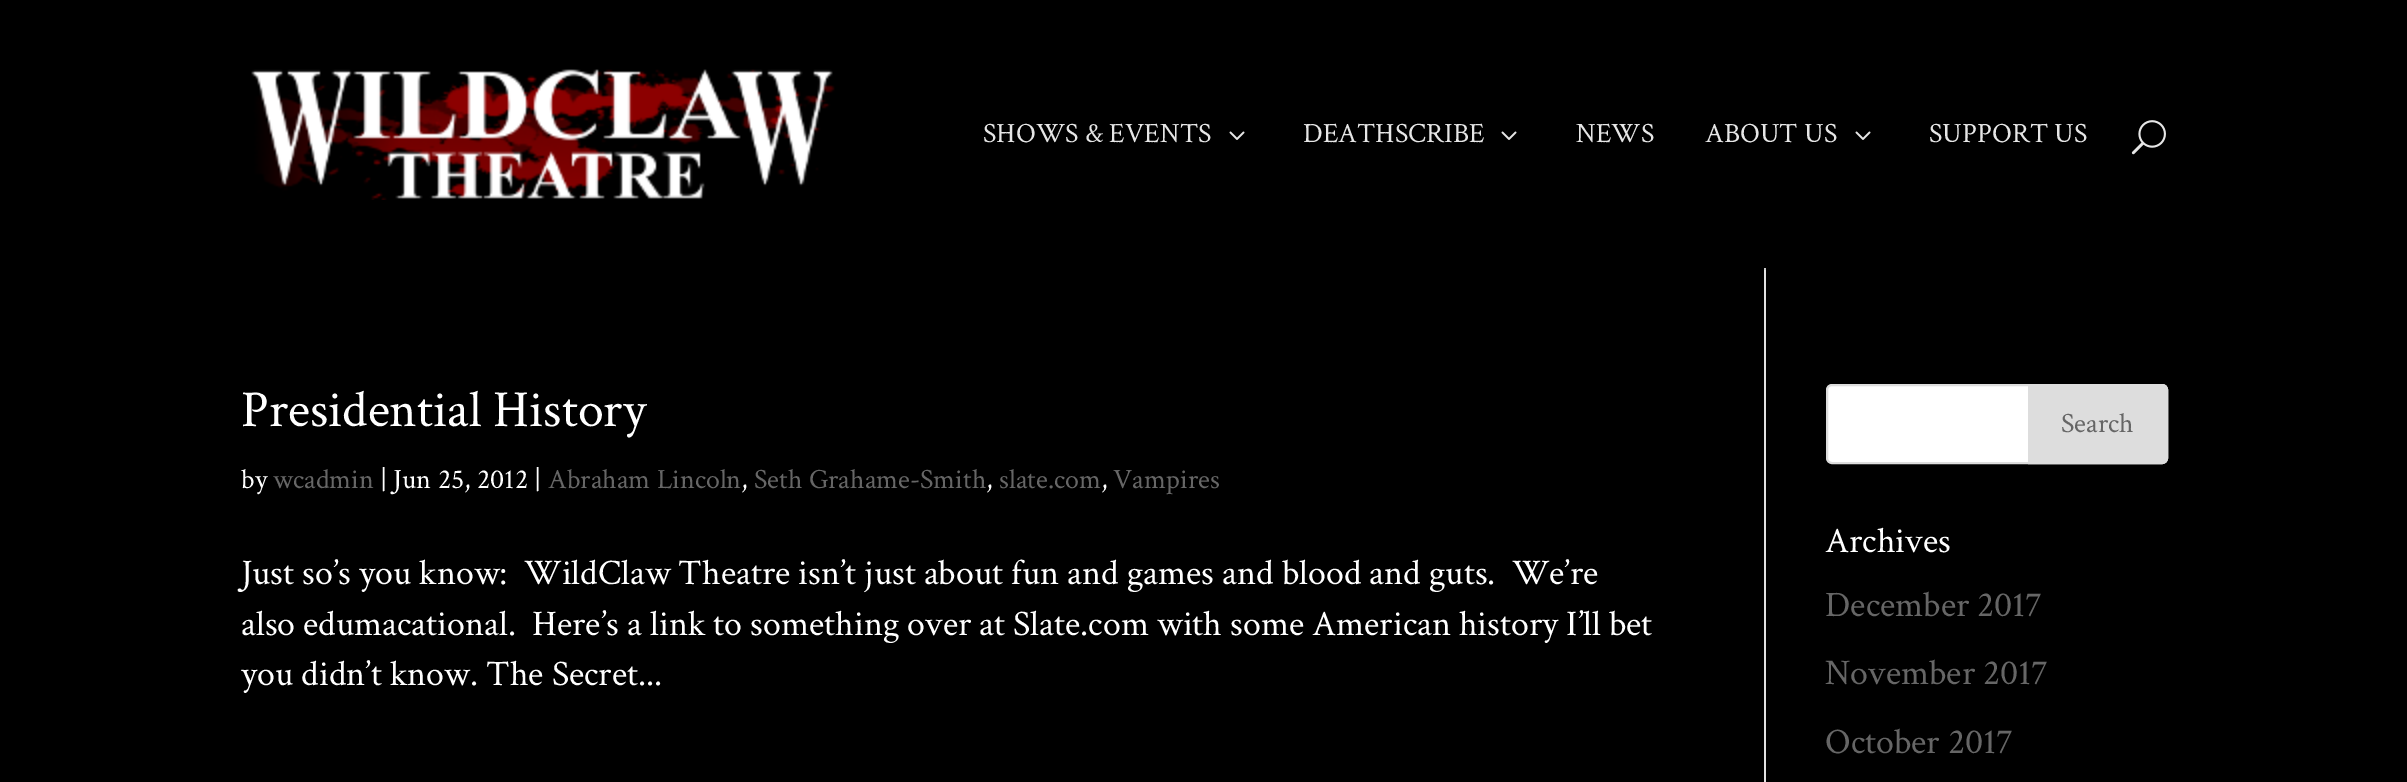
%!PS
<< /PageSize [2407 782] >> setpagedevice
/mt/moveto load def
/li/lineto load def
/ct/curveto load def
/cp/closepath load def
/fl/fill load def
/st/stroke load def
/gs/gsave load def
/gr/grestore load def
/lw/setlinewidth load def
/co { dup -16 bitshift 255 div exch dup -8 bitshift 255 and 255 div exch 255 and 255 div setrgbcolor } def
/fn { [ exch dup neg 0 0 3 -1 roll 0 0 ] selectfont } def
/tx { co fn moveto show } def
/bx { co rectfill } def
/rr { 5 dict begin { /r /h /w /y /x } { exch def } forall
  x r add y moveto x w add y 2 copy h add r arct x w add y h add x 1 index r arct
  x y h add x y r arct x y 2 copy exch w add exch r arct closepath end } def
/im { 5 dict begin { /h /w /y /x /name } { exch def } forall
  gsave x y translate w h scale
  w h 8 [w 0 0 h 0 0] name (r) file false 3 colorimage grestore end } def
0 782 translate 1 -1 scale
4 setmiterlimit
0 0 2407 782 16#000000 bx
(media/1.raw) 251 69 584 131 im
(media/2.raw) 1229 131 16 9 im
(media/2.raw) 1501 131 16 9 im
(media/2.raw) 1855 131 16 9 im
(media/3.raw) 2131 120 35 35 im
1764 268 2 514 16#E2E2E2 bx
1764 268 2 2 16#CBCBCB bx
16#FFFFFF co
1827 385 340 78 5 rr gs fl gr
16#DDDDDD co
2 lw
st
2029 385 mt 2162 385 li 2165 385 2167 387 2167 390 ct 2167 458 li 2167 461 2165 463 2162 463 ct 2029 463 li cp gs fl gr
st
(SHOWS & EVENTS) 983 142 /CrimsonText-Regular 28 16#E6E6E6 tx
(DEATHSCRIBE) 1303 142 /CrimsonText-Regular 28 16#E6E6E6 tx
(NEWS) 1576 142 /CrimsonText-Regular 28 16#E6E6E6 tx
(ABOUT US) 1705 142 /CrimsonText-Regular 28 16#E6E6E6 tx
(SUPPORT US) 1929 142 /CrimsonText-Regular 28 16#E6E6E6 tx
(Presidential History) 241 426 /CrimsonText-Regular 52 16#FFFFFF tx
(by) 241 488 /CrimsonText-Regular 28 16#FFFFFF tx
(wcadmin) 273 488 /CrimsonText-Regular 28 16#666666 tx
(| Jun 25, 2012 |) 380 488 /CrimsonText-Regular 28 16#FFFFFF tx
(Abraham Lincoln) 548 488 /CrimsonText-Regular 28 16#666666 tx
(,) 741 488 /CrimsonText-Regular 28 16#FFFFFF tx
(Seth Grahame-Smith) 754 488 /CrimsonText-Regular 28 16#666666 tx
(,) 986 488 /CrimsonText-Regular 28 16#FFFFFF tx
(slate.com) 999 488 /CrimsonText-Regular 28 16#666666 tx
(,) 1101 488 /CrimsonText-Regular 28 16#FFFFFF tx
(Vampires) 1113 488 /CrimsonText-Regular 28 16#666666 tx
(Just so’s you know:  WildClaw Theatre isn’t just about fun and games and blood and guts.  We’re) 241 584 /CrimsonText-Regular 36 16#FFFFFF tx
(also edumacational.  Here’s a link to something over at Slate.com with some American history I’ll bet) 241 635 /CrimsonText-Regular 36 16#FFFFFF tx
(you didn’t know. The Secret...) 241 685 /CrimsonText-Regular 36 16#FFFFFF tx
(Search) 2061 432 /CrimsonText-Regular 28 16#666666 tx
(Archives) 1825 552 /CrimsonText-Regular 36 16#FFFFFF tx
(December 2017) 1825 616 /CrimsonText-Regular 36 16#666666 tx
(November 2017) 1825 684 /CrimsonText-Regular 36 16#666666 tx
(October 2017) 1825 753 /CrimsonText-Regular 36 16#666666 tx
showpage
